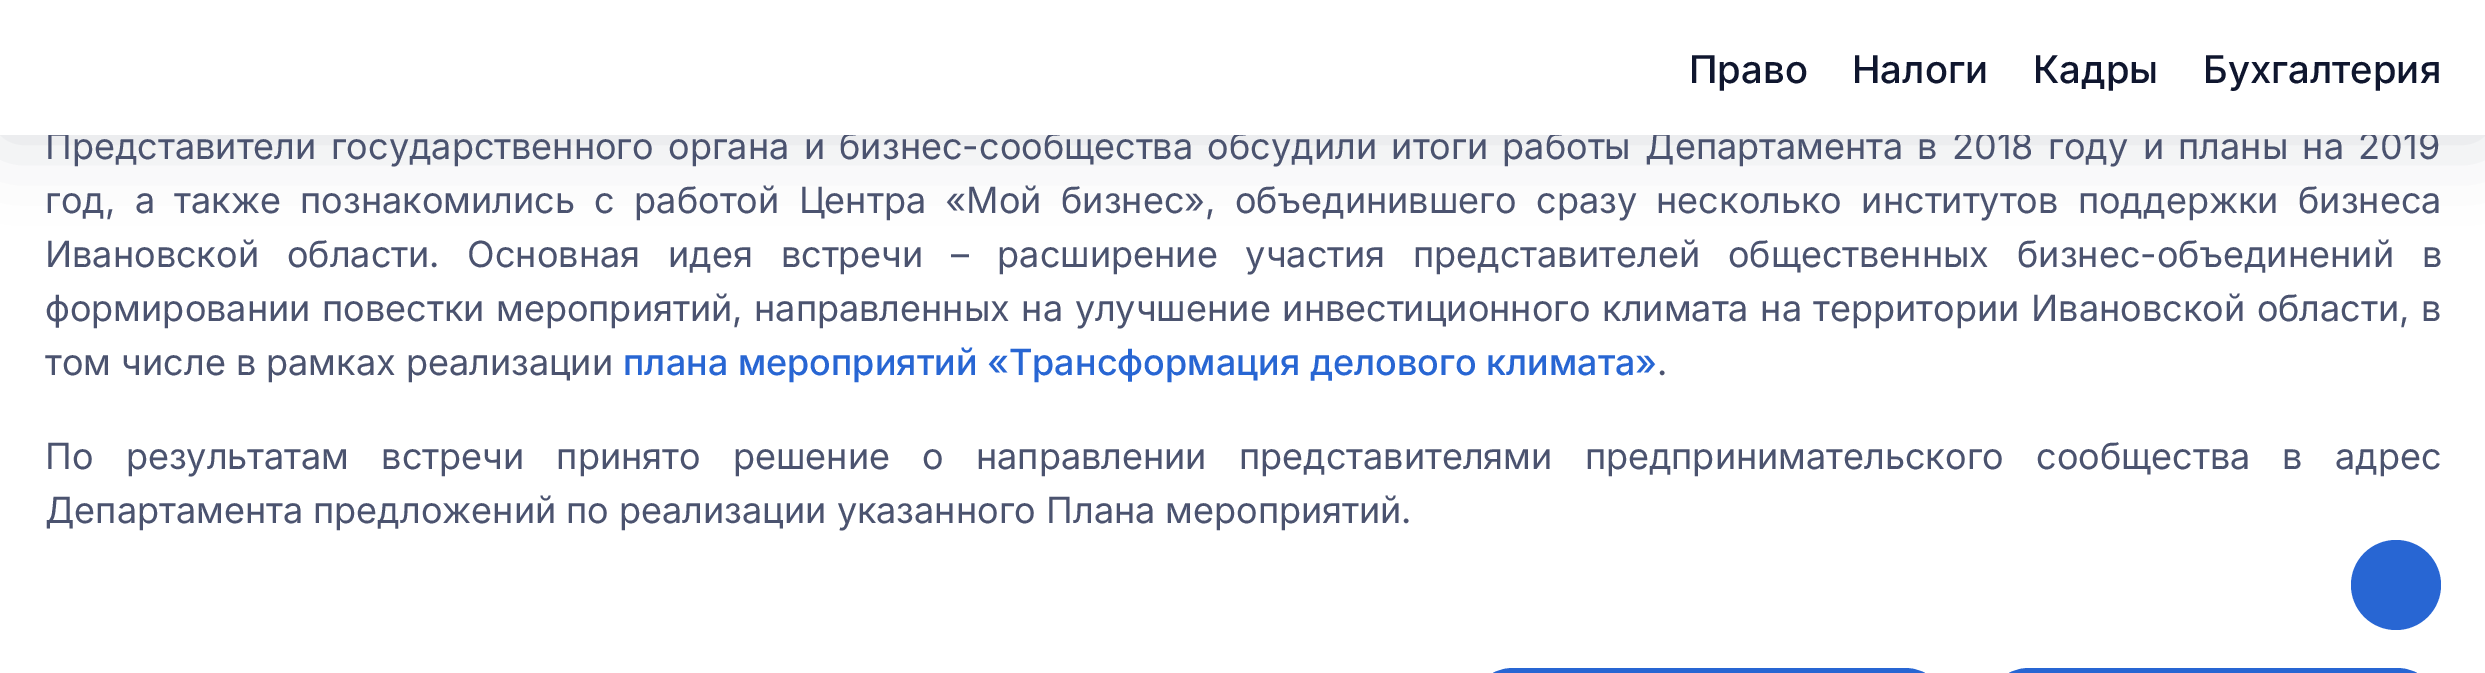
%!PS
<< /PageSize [2485 673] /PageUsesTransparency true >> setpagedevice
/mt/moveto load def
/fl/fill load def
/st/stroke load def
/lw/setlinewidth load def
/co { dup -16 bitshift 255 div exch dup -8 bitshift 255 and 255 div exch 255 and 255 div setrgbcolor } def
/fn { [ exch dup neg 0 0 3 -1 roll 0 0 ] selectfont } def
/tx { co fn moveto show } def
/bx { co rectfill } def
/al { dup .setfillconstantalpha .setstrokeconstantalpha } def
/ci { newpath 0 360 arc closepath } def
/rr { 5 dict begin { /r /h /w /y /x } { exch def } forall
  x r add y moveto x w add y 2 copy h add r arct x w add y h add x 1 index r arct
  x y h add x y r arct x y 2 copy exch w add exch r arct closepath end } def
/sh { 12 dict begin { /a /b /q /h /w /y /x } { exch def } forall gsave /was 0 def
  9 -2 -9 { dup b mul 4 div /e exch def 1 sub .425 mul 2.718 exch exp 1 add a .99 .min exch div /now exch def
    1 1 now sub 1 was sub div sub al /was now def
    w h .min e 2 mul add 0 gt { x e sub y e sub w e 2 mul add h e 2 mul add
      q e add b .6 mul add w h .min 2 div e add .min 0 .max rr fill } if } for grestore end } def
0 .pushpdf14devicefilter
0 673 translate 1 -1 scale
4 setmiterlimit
0 0 2485 673 16#FFFFFF bx
16#0F162E co
0 0 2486 135 0 40.5 .15 sh
16#2866D3 co
5 lw
1471.5 670.5 475 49 41.5 rr st
1987.5 670.5 451 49 41.5 rr st
2396 585 45 ci fl
/Inter-Regular 36 fn
16#4B536F co
45 159 mt 4.25 0 32 (Представители государственного органа и бизнес-сообщества обсудили итоги работы Департамента в 2018 году и планы на 2019) widthshow
0 0 2485 135 16#FFFFFF bx
(Бухгалтерия) 2203 83 /Inter-Medium 38.25 16#0F162E tx
(Кадры) 2033 83 /Inter-Medium 38.25 16#0F162E tx
(Налоги) 1852 83 /Inter-Medium 38.25 16#0F162E tx
(Право) 1689 83 /Inter-Medium 38.25 16#0F162E tx
/Inter-Regular 36 fn
16#4B536F co
45 213 mt 9.25 0 32 (год, а также познакомились с работой Центра «Мой бизнес», объединившего сразу несколько институтов поддержки бизнеса) widthshow
45 267 mt 17.75 0 32 (Ивановской области. Основная идея встречи – расширение участия представителей общественных бизнес-объединений в) widthshow
45 321 mt 1.5 0 32 (формировании повестки мероприятий, направленных на улучшение инвестиционного климата на территории Ивановской области, в) widthshow
(том числе в рамках реализации) 45 375 /Inter-Regular 36 16#4B536F tx
(плана мероприятий «Трансформация делового климата») 623 375 /Inter-Medium 36 16#2866D3 tx
(.) 1657 375 /Inter-Regular 36 16#4B536F tx
45 469 mt 22.1 0 32 (По результатам встречи принято решение о направлении представителями предпринимательского сообщества в адрес) widthshow
(Департамента предложений по реализации указанного Плана мероприятий.) 45 523 /Inter-Regular 36 16#4B536F tx
.poppdf14devicefilter showpage
